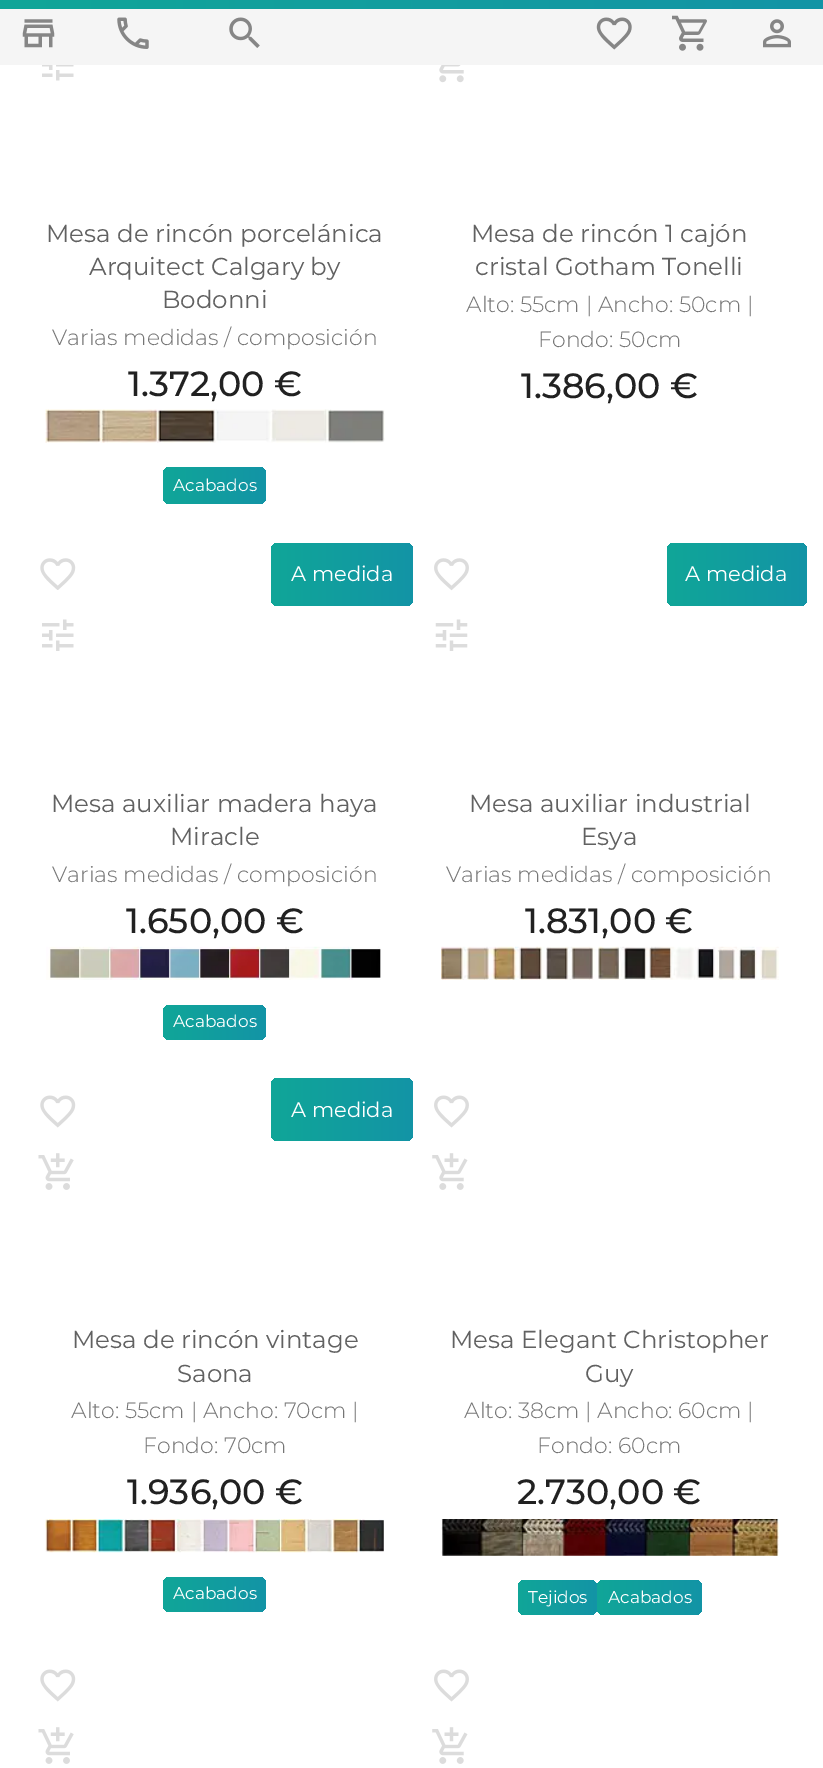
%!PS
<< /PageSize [823 1768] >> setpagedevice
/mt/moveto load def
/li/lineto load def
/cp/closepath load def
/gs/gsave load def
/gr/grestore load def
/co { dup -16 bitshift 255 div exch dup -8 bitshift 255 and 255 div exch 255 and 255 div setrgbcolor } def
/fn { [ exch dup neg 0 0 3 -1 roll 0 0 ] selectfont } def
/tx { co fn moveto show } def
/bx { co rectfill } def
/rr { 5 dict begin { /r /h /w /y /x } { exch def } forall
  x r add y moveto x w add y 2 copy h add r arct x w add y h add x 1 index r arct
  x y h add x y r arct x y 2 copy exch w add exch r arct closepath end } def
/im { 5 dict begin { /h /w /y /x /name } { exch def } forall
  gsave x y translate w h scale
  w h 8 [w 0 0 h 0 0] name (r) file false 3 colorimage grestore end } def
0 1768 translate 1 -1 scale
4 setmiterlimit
0 0 823 1768 16#FFFFFF bx
0 9 823 56 16#F5F5F5 bx
gs 0 0 mt 823 0 li 823 9 li 0 9 li cp clip newpath
<< /ShadingType 2 /ColorSpace /DeviceRGB /Coords [0 4.4 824 4.4] /Extend [true true] /Function << /FunctionType 2 /Domain [0 1] /C0 [.063 .651 .596] /C1 [.075 .58 .651] /N 1 >> >> shfill gr
(media/1.raw) 22 19 33 29 im
(media/2.raw) 117 17 32 32 im
(media/3.raw) 229 17 31 31 im
(media/4.raw) 596 17 36 33 im
(media/5.raw) 672 15 35 36 im
(media/6.raw) 763 19 28 29 im
(media/7.raw) 42 65 32 16 im
(media/8.raw) 45 409 340 34 im
gs 163 467 103 37 7 rr clip newpath
<< /ShadingType 2 /ColorSpace /DeviceRGB /Coords [163 486 266 486] /Extend [true true] /Function << /FunctionType 2 /Domain [0 1] /C0 [.063 .651 .596] /C1 [.075 .58 .651] /N 1 >> >> shfill gr
(media/9.raw) 439 65 25 18 im
(media/10.raw) 40 558 36 32 im
(media/11.raw) 42 619 32 32 im
gs 271 543 142 63 7 rr clip newpath
<< /ShadingType 2 /ColorSpace /DeviceRGB /Coords [271 574 413 574] /Extend [true true] /Function << /FunctionType 2 /Domain [0 1] /C0 [.063 .651 .596] /C1 [.075 .58 .651] /N 1 >> >> shfill gr
(media/12.raw) 46 946 335 34 im
gs 163 1005 103 35 7 rr clip newpath
<< /ShadingType 2 /ColorSpace /DeviceRGB /Coords [163 1022 266 1022] /Extend [true true] /Function << /FunctionType 2 /Domain [0 1] /C0 [.063 .651 .596] /C1 [.075 .58 .651] /N 1 >> >> shfill gr
(media/13.raw) 434 558 35 33 im
(media/14.raw) 435 619 33 32 im
gs 667 543 140 63 7 rr clip newpath
<< /ShadingType 2 /ColorSpace /DeviceRGB /Coords [667 574 807 574] /Extend [true true] /Function << /FunctionType 2 /Domain [0 1] /C0 [.063 .651 .596] /C1 [.075 .58 .651] /N 1 >> >> shfill gr
(media/15.raw) 441 946 338 34 im
(media/16.raw) 40 1095 36 33 im
(media/17.raw) 38 1153 36 37 im
gs 271 1078 142 63 7 rr clip newpath
<< /ShadingType 2 /ColorSpace /DeviceRGB /Coords [271 1110 413 1110] /Extend [true true] /Function << /FunctionType 2 /Domain [0 1] /C0 [.063 .651 .596] /C1 [.075 .58 .651] /N 1 >> >> shfill gr
(media/18.raw) 45 1519 339 34 im
gs 163 1577 103 35 7 rr clip newpath
<< /ShadingType 2 /ColorSpace /DeviceRGB /Coords [163 1594 266 1594] /Extend [true true] /Function << /FunctionType 2 /Domain [0 1] /C0 [.063 .651 .596] /C1 [.075 .58 .651] /N 1 >> >> shfill gr
(media/19.raw) 434 1095 35 33 im
(media/20.raw) 432 1153 36 37 im
(media/21.raw) 441 1519 338 37 im
gs 518 1580 79 35 7 rr clip newpath
<< /ShadingType 2 /ColorSpace /DeviceRGB /Coords [518 1598 597 1598] /Extend [true true] /Function << /FunctionType 2 /Domain [0 1] /C0 [.063 .651 .596] /C1 [.075 .58 .651] /N 1 >> >> shfill gr
gs 597 1580 105 35 7 rr clip newpath
<< /ShadingType 2 /ColorSpace /DeviceRGB /Coords [597 1598 702 1598] /Extend [true true] /Function << /FunctionType 2 /Domain [0 1] /C0 [.063 .651 .596] /C1 [.075 .58 .651] /N 1 >> >> shfill gr
(media/16.raw) 40 1669 36 33 im
(media/17.raw) 38 1727 36 37 im
(media/19.raw) 434 1669 35 33 im
(media/20.raw) 432 1727 36 37 im
(Mesa de rincón porcelánica) 46 242 /Montserrat-Regular 24.5 16#616161 tx
(Arquitect Calgary by) 89 275 /Montserrat-Regular 24.5 16#616161 tx
(Bodonni) 162 308 /Montserrat-Regular 24.5 16#616161 tx
(Varias medidas / composición) 52 345 /Montserrat-Light 22 16#757575 tx
(1.372,00 €) 128 396 /Montserrat-Medium 35 16#212121 tx
(Acabados) 173 491 /Montserrat-Regular 17 16#FFFFFF tx
(Mesa de rincón 1 cajón) 471 242 /Montserrat-Regular 24.5 16#616161 tx
(cristal Gotham Tonelli) 475 275 /Montserrat-Regular 24.5 16#616161 tx
(Alto: 55cm | Ancho: 50cm |) 466 312 /Montserrat-Light 22 16#757575 tx
(Fondo: 50cm) 538 347 /Montserrat-Light 22 16#757575 tx
(1.386,00 €) 521 398 /Montserrat-Medium 35 16#212121 tx
(A medida) 291 581 /Montserrat-Regular 21 16#FFFFFF tx
(Mesa auxiliar madera haya) 51 812 /Montserrat-Regular 24.5 16#616161 tx
(Miracle) 170 845 /Montserrat-Regular 24.5 16#616161 tx
(Varias medidas / composición) 52 882 /Montserrat-Light 22 16#757575 tx
(1.650,00 €) 126 933 /Montserrat-Medium 35 16#212121 tx
(Acabados) 173 1027 /Montserrat-Regular 17 16#FFFFFF tx
(A medida) 685 581 /Montserrat-Regular 21 16#FFFFFF tx
(Mesa auxiliar industrial) 469 812 /Montserrat-Regular 24.5 16#616161 tx
(Esya) 581 845 /Montserrat-Regular 24.5 16#616161 tx
(Varias medidas / composición) 446 882 /Montserrat-Light 22 16#757575 tx
(1.831,00 €) 525 933 /Montserrat-Medium 35 16#212121 tx
(A medida) 291 1117 /Montserrat-Regular 21 16#FFFFFF tx
(Mesa de rincón vintage) 72 1348 /Montserrat-Regular 24.5 16#616161 tx
(Saona) 177 1382 /Montserrat-Regular 24.5 16#616161 tx
(Alto: 55cm | Ancho: 70cm |) 71 1418 /Montserrat-Light 22 16#757575 tx
(Fondo: 70cm) 143 1453 /Montserrat-Light 22 16#757575 tx
(1.936,00 €) 127 1504 /Montserrat-Medium 35 16#212121 tx
(Acabados) 173 1599 /Montserrat-Regular 17 16#FFFFFF tx
(Mesa Elegant Christopher) 450 1348 /Montserrat-Regular 24.5 16#616161 tx
(Guy) 585 1382 /Montserrat-Regular 24.5 16#616161 tx
(Alto: 38cm | Ancho: 60cm |) 464 1418 /Montserrat-Light 22 16#757575 tx
(Fondo: 60cm) 537 1453 /Montserrat-Light 22 16#757575 tx
(2.730,00 €) 517 1504 /Montserrat-Medium 35 16#212121 tx
(Tejidos) 528 1603 /Montserrat-Regular 17 16#FFFFFF tx
(Acabados) 608 1603 /Montserrat-Regular 17 16#FFFFFF tx
showpage
